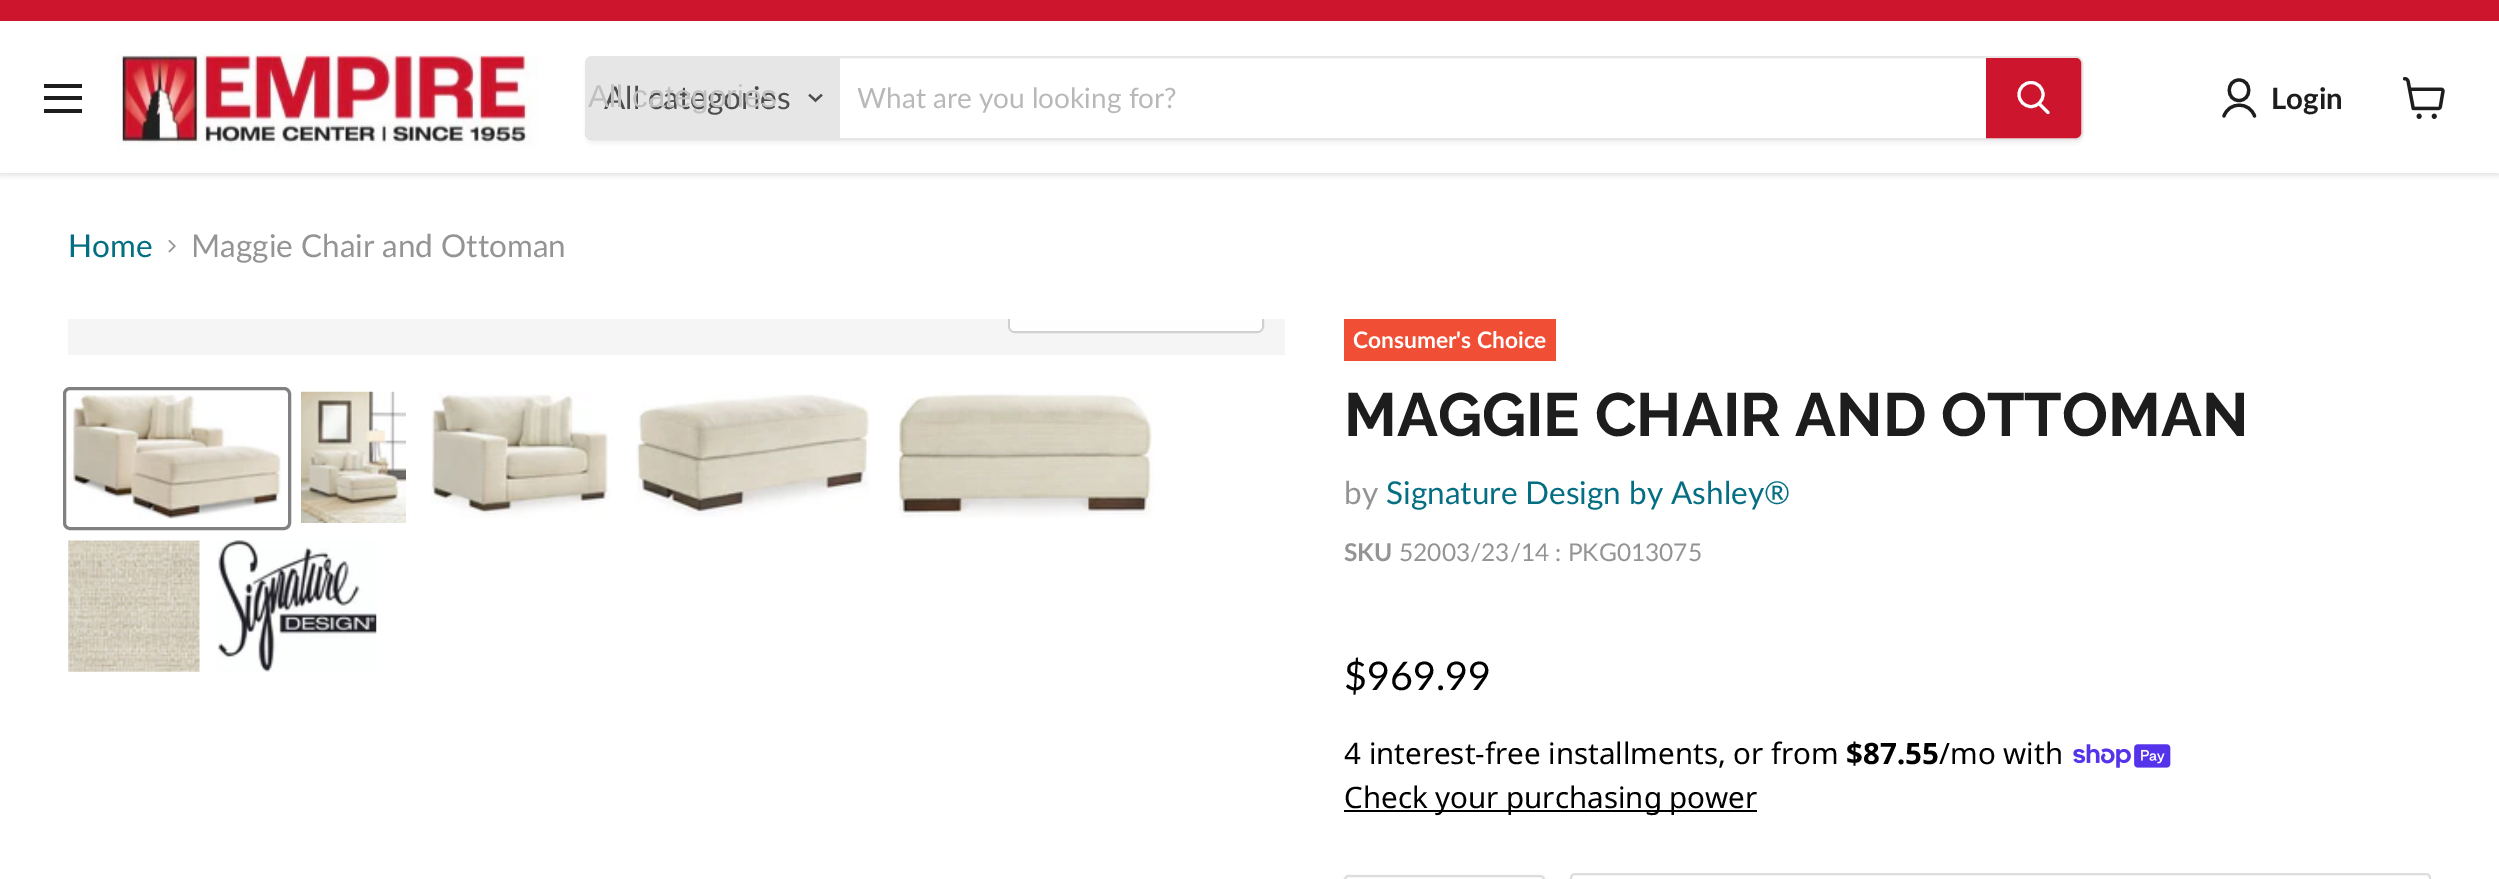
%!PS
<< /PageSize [2499 879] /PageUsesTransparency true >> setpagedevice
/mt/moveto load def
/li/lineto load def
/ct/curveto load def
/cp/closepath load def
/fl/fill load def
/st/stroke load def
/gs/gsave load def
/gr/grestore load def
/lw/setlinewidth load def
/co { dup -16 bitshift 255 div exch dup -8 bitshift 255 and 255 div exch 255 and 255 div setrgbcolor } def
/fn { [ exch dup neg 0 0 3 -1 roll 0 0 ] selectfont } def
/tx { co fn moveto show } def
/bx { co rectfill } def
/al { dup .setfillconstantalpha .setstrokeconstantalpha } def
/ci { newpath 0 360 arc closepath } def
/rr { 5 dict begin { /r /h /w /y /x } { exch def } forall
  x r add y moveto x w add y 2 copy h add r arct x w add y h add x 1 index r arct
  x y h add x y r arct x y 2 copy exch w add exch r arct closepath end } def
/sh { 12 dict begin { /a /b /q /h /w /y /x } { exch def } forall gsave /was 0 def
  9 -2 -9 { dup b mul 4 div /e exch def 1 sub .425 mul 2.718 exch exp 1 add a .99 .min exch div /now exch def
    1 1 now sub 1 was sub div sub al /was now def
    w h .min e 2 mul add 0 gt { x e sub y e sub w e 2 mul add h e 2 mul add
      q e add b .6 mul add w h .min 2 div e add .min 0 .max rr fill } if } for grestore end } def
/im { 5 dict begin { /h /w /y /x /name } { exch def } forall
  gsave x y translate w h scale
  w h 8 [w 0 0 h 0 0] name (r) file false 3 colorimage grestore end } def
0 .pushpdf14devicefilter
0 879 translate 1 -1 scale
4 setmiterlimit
0 0 2499 879 16#FFFFFF bx
gs
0 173 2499 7 rectclip
16#808080 co
0 25 2499 150 0 3.5 .25 sh
gr
0 0 2499 21 16#CD152D bx
0 21 2499 2 16#FFFFFF bx
44 84 38 4 16#1D1D1D bx
44 96 38 4 16#1D1D1D bx
44 109 38 4 16#1D1D1D bx
(media/1.raw) 115 51 424 99 im
gs
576 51 mt 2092 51 li 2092 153 li 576 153 li cp 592 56 mt 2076 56 li 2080 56 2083 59 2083 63 ct 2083 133 li 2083 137 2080 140 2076 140 ct 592 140 li 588 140 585 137 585 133 ct 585 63 li 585 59 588 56 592 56 ct cp eoclip newpath
16#808080 co
585 60 1498 84 7 2.5 .11 sh
gr
0.2 al
16#808080 co
2 lw
586 57 1496 82 6 rr st
1 al
16#E6E6E6 co
591 58 mt 840 58 li 840 138 li 591 138 li 588 138 586 136 586 133 ct 586 63 li 586 60 588 58 591 58 ct cp fl
16#4D4D4D co
2.2 lw
2 setlinecap
815.5 100.5 mt 821 95.5 li 815.5 100.5 mt 810 95.5 li st
16#CD152D co
1987 59 mt 2076 59 li 2078 59 2080 61 2080 63 ct 2080 133 li 2080 135 2078 137 2076 137 ct 1987 137 li cp gs fl gr
2 lw
0 setlinecap
st
16#FFFFFF co
3 lw
1 setlinecap
2048 112.5 mt 2039.5 104 li st
0 setlinecap
2031 94.5 12 ci st
16#1D1D1D co
3.2 lw
1 setlinecap
1 setlinejoin
2239 100.5 mt 2252 100.5 2252 80 2239 80 ct 2226 80 2226 100.5 2239 100.5 ct cp 2254.5 116 mt 2249.5 101.5 2229 101.5 2224 116 ct st
(media/2.raw) 2403 77 42 42 im
(media/3.raw) 168 239 8 14 im
68 319 1217 36 16#F5F5F5 bx
gs
68 319 1217 36 rectclip
16#D0D0D0 co
2 lw
0 setlinecap
0 setlinejoin
1009 278 254 54 6 rr st
gr
0.9 al
16#FFFFFF co
1010 319 mt 1262 319 li 1262 326 li 1262 329 1260 331 1257 331 ct 1015 331 li 1012 331 1010 329 1010 326 ct cp fl
1 al
16#818181 co
3 lw
0 setlinecap
0 setlinejoin
64.5 388.5 225 140 5.5 rr st
(media/4.raw) 69 392 212 127 im
(media/5.raw) 301 391 105 132 im
(media/6.raw) 431 392 181 126 im
(media/7.raw) 636 392 234 125 im
(media/8.raw) 897 392 258 126 im
(media/9.raw) 68 540 132 132 im
(media/10.raw) 217 540 160 132 im
1344 319 212 42 16#F04F36 bx
(media/11.raw) 2073 744 98 24 im
1344 810 413 2 16#000000 bx
1344 877 201 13 5 2 .15 sh
16#FFFFFF co
1345 876 199 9 4 rr gs fl gr
16#DDDDDD co
2 lw
st
1571 874 859 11 4 rr st
(All categories) 604 109 /Lato-Regular 31.5 16#4D4D4D tx
(All categories) 588 107 /LiberationSans-Regular 31.5 16#C0C0C0 tx
gs
858 81 1111 33 rectclip
(What are you looking for?) 857 108 /Lato-Regular 28 16#B8B8B8 tx
gr
(Login) 2271 109 /Lato-Bold 29.5 16#1D1D1D tx
(Home) 68 257 /Lato-Regular 31.5 16#046E82 tx
(Maggie Chair and Ottoman) 191 257 /Lato-Regular 31.5 16#949494 tx
(Consumer's Choice) 1353 348 /Lato-Bold 22.75 16#FFFFFF tx
(MAGGIE CHAIR AND OTTOMAN) 1344 436 /Raleway-Bold 60.9 16#1D1D1D tx
(by) 1344 504 /Lato-Regular 31.5 16#949494 tx
(Signature Design by Ashley®) 1386 504 /Lato-Regular 31.5 16#046E82 tx
(SKU) 1344 561 /Lato-Bold 24.5 16#949494 tx
(52003/23/14 : PKG013075) 1399 561 /Lato-Regular 24.5 16#949494 tx
($969.99) 1344 690 /Lato-Regular 39.5 16#000000 tx
(4 interest-free installments, or from) 1344 764 /NotoSans-Regular 29.5 16#000000 tx
($87.55) 1846 764 /NotoSans-Bold 29.5 16#000000 tx
(/mo with) 1939 764 /NotoSans-Regular 29.5 16#000000 tx
(Check your purchasing power) 1344 808 /NotoSans-Regular 29.5 16#000000 tx
.poppdf14devicefilter showpage
